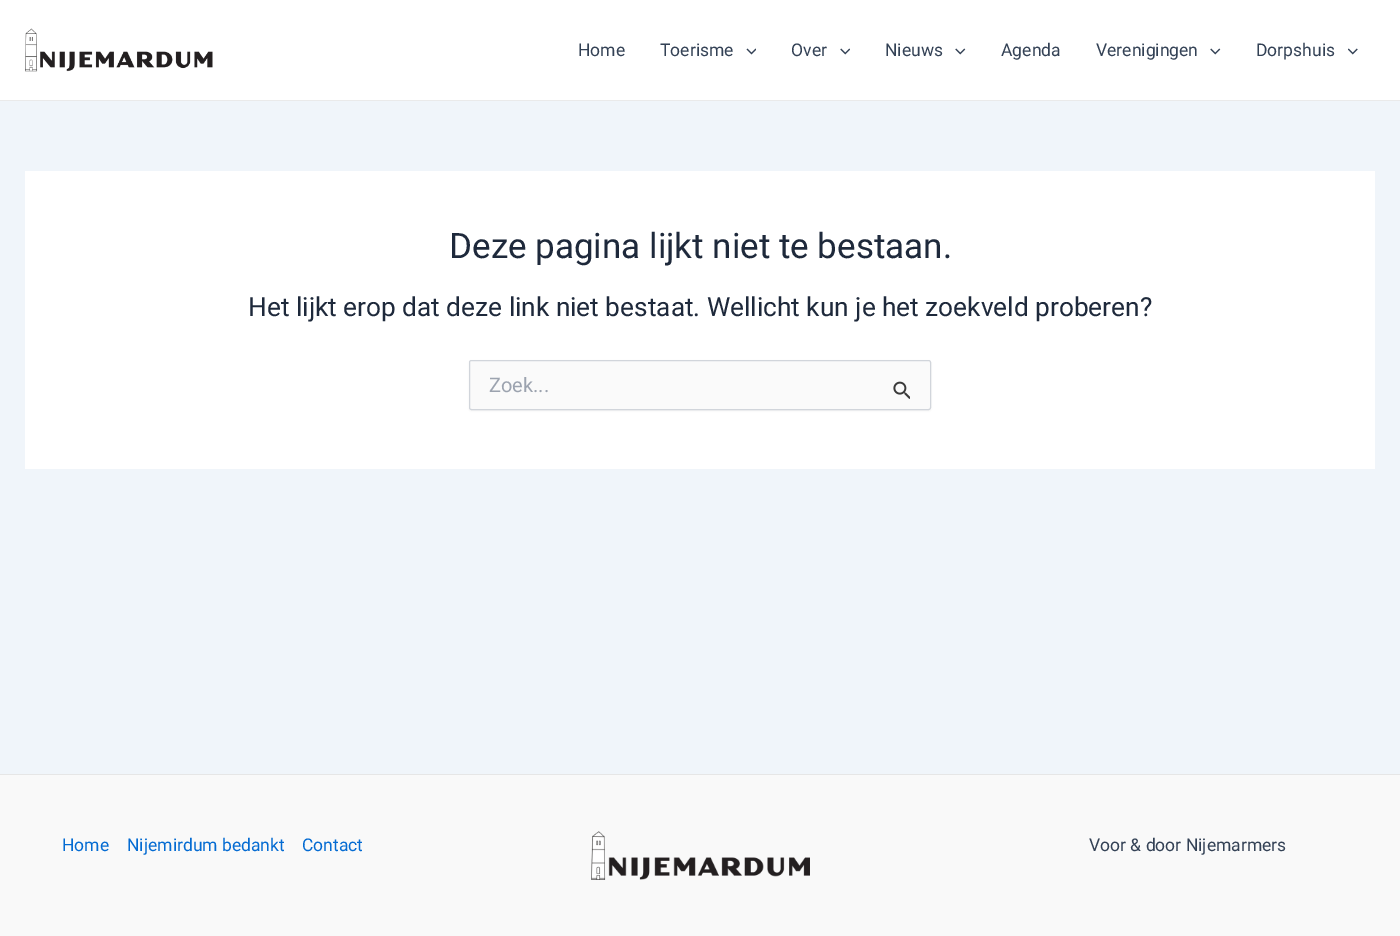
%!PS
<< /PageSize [1400 936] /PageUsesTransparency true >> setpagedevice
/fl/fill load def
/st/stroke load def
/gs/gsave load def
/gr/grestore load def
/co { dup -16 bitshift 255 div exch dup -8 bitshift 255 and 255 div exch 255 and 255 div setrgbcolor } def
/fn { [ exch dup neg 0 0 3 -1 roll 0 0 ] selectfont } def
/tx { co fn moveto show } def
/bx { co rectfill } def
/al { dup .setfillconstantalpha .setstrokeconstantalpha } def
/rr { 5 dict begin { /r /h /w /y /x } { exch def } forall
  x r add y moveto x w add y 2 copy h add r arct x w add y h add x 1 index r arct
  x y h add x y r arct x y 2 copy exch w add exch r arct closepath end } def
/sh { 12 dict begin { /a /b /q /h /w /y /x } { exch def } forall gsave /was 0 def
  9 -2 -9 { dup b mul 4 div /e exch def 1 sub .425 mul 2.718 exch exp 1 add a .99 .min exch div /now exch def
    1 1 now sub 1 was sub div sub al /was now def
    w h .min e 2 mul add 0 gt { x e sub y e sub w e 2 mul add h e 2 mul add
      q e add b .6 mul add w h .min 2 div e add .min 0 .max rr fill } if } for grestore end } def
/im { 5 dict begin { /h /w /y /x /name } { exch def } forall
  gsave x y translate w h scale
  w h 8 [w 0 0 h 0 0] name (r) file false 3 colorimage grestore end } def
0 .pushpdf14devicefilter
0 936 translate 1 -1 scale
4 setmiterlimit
0 0 1400 936 16#F0F5FA bx
0 0 1400 100 16#FFFFFF bx
0 100 1400 1 16#EAEAEA bx
(media/1.raw) 25 28 188 44 im
(media/2.raw) 746 48 10 7 im
(media/3.raw) 840 48 10 7 im
(media/4.raw) 955 48 11 7 im
(media/4.raw) 1210 48 11 7 im
(media/5.raw) 1348 48 10 7 im
25 171 1350 298 16#FFFFFF bx
16#000000 co
469 361 462 50 2.5 1 .05 sh
16#FAFAFA co
469.5 360.5 461 49 2 rr gs fl gr
16#D1D5DB co
st
(media/6.raw) 893 381 17 18 im
0 775 1400 161 16#F9F9F9 bx
0 774 1400 1 16#E6E6E6 bx
(media/7.raw) 591 831 219 49 im
(Home) 578 56 /Roboto-Regular 17.5 16#334155 tx
(Toerisme) 660 56 /Roboto-Regular 17.5 16#334155 tx
(Over) 791 56 /Roboto-Regular 17.5 16#334155 tx
(Nieuws) 885 56 /Roboto-Regular 17.5 16#334155 tx
(Agenda) 1001 56 /Roboto-Regular 17.5 16#334155 tx
(Verenigingen) 1096 56 /Roboto-Regular 17.5 16#334155 tx
(Dorpshuis) 1256 56 /Roboto-Regular 17.5 16#334155 tx
(Deze pagina lijkt niet te bestaan.) 449 258 /Roboto-Regular 35 16#1E293B tx
(Het lijkt erop dat deze link niet bestaat. Wellicht kun je het zoekveld proberen?) 248 316 /Roboto-Regular 26.25 16#1E293B tx
(Zoek...) 489 392 /Roboto-Regular 20 16#9CA3AF tx
(Home) 62 851 /Roboto-Regular 17.5 16#046BD2 tx
(Nijemirdum bedankt) 127 851 /Roboto-Regular 17.5 16#046BD2 tx
(Contact) 302 851 /Roboto-Regular 17.5 16#046BD2 tx
(Voor & door Nijemarmers) 1089 851 /Roboto-Regular 17.5 16#334155 tx
.poppdf14devicefilter showpage
